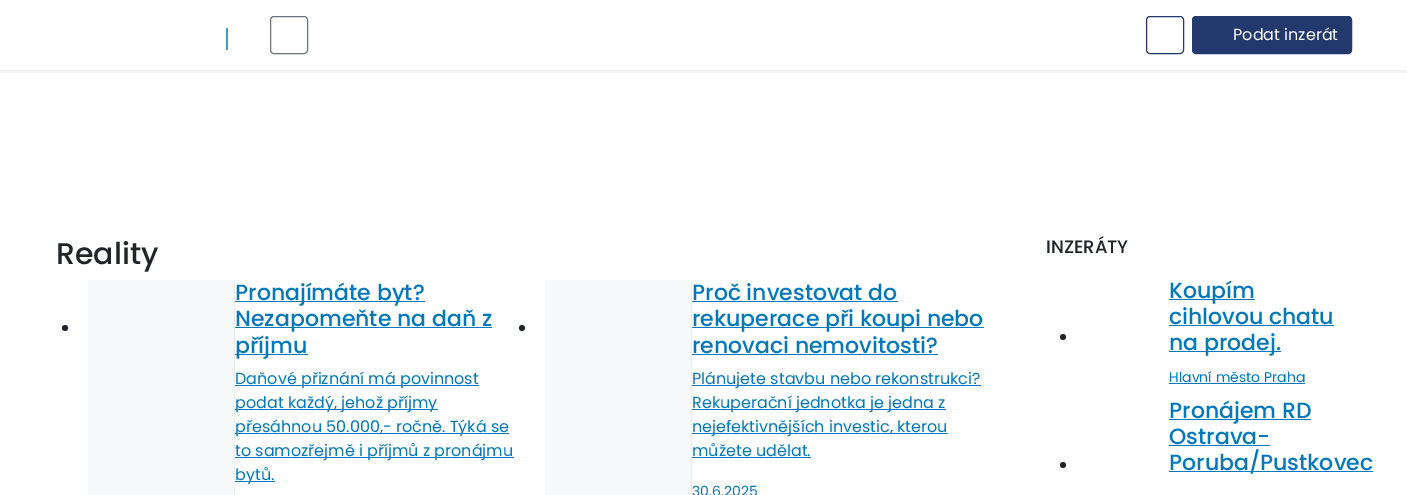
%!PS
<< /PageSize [1407 495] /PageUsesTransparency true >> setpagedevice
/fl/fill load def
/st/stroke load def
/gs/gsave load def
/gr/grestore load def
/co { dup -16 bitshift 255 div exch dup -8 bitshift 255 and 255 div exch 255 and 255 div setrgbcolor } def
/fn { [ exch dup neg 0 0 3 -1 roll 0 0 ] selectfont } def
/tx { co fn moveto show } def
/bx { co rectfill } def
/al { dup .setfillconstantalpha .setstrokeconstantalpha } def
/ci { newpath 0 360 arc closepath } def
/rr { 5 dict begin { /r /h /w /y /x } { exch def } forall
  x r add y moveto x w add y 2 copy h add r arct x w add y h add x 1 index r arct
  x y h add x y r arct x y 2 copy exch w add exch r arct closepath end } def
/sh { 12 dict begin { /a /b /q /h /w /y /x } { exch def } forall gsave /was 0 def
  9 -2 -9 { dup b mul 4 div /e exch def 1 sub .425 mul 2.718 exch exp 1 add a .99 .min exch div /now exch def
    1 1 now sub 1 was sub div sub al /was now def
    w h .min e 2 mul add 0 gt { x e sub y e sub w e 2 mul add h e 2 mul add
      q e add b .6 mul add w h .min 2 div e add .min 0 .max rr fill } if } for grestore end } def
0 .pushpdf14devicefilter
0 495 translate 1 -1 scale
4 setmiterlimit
0 0 1407 495 16#FFFFFF bx
gs
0 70 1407 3 rectclip
16#000000 co
0 2 1407 70 0 2 .07 sh
gr
226 28 2 22 16#419ACB bx
16#6C757D co
270.5 16.5 37 37 3.5 rr st
16#23396E co
1146.5 16.5 37 37 3.5 rr st
1192.5 16.5 159 37 3.5 rr gs fl gr
st
16#212529 co
65 328 3 ci fl
88 280 146 215 16#F8F9FA bx
234 280 1 215 16#E9ECEF bx
235 301 190 1 16#0178BA bx
235 327 257 1 16#0178BA bx
235 354 73 1 16#0178BA bx
235 385 244 1 16#0178BA bx
235 409 203 1 16#0178BA bx
235 433 274 1 16#0178BA bx
235 457 279 1 16#0178BA bx
235 481 40 1 16#0178BA bx
16#212529 co
522 328 3 ci fl
545 280 146 215 16#F8F9FA bx
691 280 1 215 16#E9ECEF bx
692 301 206 1 16#0178BA bx
692 327 292 1 16#0178BA bx
692 354 246 1 16#0178BA bx
692 385 289 1 16#0178BA bx
692 409 254 1 16#0178BA bx
692 433 256 1 16#0178BA bx
692 457 119 1 16#0178BA bx
16#212529 co
1063 337 3 ci fl
1169 299 86 1 16#0178BA bx
1169 325 165 1 16#0178BA bx
1169 351 112 1 16#0178BA bx
1169 383 136 1 16#0178BA bx
16#212529 co
1063 465 3 ci fl
1169 419 142 1 16#0178BA bx
1169 445 101 1 16#0178BA bx
1169 471 204 1 16#0178BA bx
(Podat inzerát) 1233 40 /Poppins-Regular 16 16#FFFFFF tx
(Reality) 56 264 /Poppins-Medium 30 16#212529 tx
(Pronajímáte byt?) 235 300 /Poppins-Medium 22 16#0178BA tx
(Nezapomeňte na daň z) 235 326 /Poppins-Medium 22 16#0178BA tx
(příjmu) 235 353 /Poppins-Medium 22 16#0178BA tx
(Daňové přiznání má povinnost) 235 384 /Poppins-Regular 16 16#0178BA tx
(podat každý, jehož příjmy) 235 408 /Poppins-Regular 16 16#0178BA tx
(přesáhnou 50.000,- ročně. Týká se) 235 432 /Poppins-Regular 16 16#0178BA tx
(to samozřejmě i příjmů z pronájmu) 235 456 /Poppins-Regular 16 16#0178BA tx
(bytů.) 235 480 /Poppins-Regular 16 16#0178BA tx
(Proč investovat do) 692 300 /Poppins-Medium 22 16#0178BA tx
(rekuperace při koupi nebo) 692 326 /Poppins-Medium 22 16#0178BA tx
(renovaci nemovitosti?) 692 353 /Poppins-Medium 22 16#0178BA tx
(Plánujete stavbu nebo rekonstrukci?) 692 384 /Poppins-Regular 16 16#0178BA tx
(Rekuperační jednotka je jedna z) 692 408 /Poppins-Regular 16 16#0178BA tx
(nejefektivnějších investic, kterou) 692 432 /Poppins-Regular 16 16#0178BA tx
(můžete udělat.) 692 456 /Poppins-Regular 16 16#0178BA tx
(30.6.2025) 692 496 /Poppins-Regular 14 16#0178BA tx
(INZERÁTY) 1046 253 /Poppins-Medium 18 16#212529 tx
(Koupím) 1169 298 /Poppins-Medium 22 16#0178BA tx
(cihlovou chatu) 1169 324 /Poppins-Medium 22 16#0178BA tx
(na prodej.) 1169 350 /Poppins-Medium 22 16#0178BA tx
(Hlavní město Praha) 1169 382 /Poppins-Regular 14 16#0178BA tx
(Pronájem RD) 1169 418 /Poppins-Medium 22 16#0178BA tx
(Ostrava-) 1169 444 /Poppins-Medium 22 16#0178BA tx
(Poruba/Pustkovec) 1169 470 /Poppins-Medium 22 16#0178BA tx
.poppdf14devicefilter showpage
